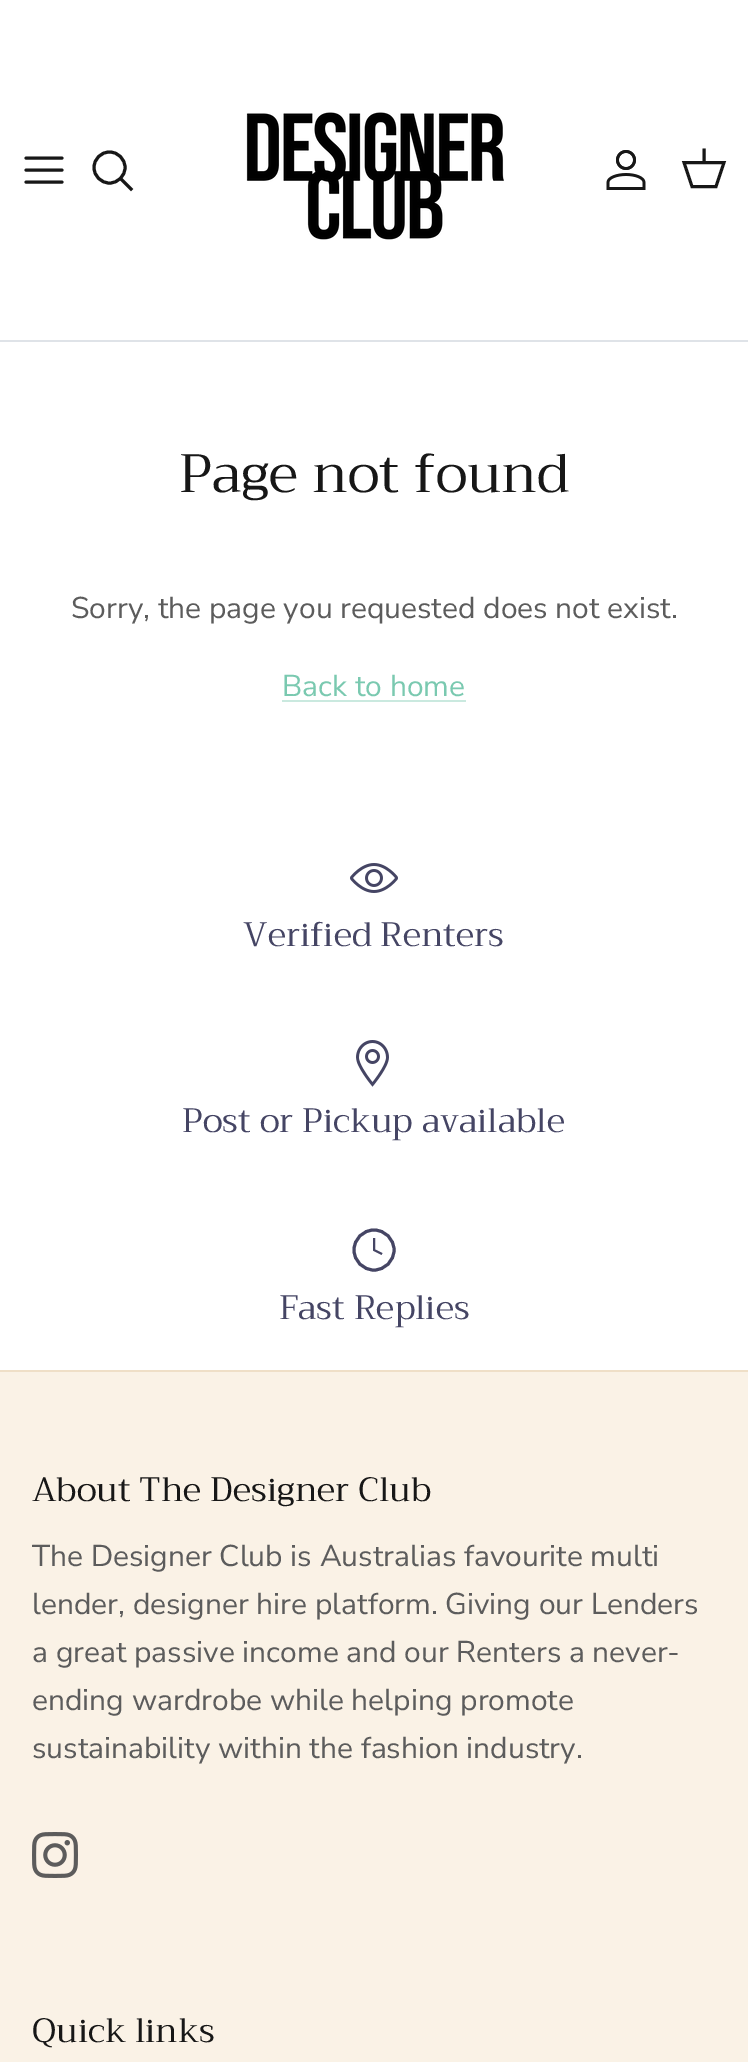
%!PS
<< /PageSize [748 2062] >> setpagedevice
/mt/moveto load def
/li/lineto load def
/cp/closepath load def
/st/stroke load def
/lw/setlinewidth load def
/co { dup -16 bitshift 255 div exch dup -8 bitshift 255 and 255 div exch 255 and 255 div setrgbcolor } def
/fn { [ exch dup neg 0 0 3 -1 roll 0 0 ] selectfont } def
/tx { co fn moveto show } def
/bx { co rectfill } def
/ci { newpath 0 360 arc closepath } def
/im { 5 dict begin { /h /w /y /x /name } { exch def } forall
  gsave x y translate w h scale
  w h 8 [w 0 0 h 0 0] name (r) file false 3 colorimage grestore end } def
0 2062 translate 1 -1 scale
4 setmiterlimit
0 0 748 2062 16#FFFFFF bx
0 340 748 2 16#DFE3E8 bx
16#171717 co
3 lw
1 setlinecap
1 setlinejoin
26 170 mt 62 170 li 26 158 mt 62 158 li 26 182 mt 62 182 li st
0 setlinecap
0 setlinejoin
109.5 167.5 15.5 ci st
2 setlinecap
122 180 mt 131 189 li st
(media/1.raw) 246 112 258 128 im
(media/2.raw) 606 150 40 40 im
0 setlinecap
684 162.5 mt 724 162.5 li 716 186.5 li 692 186.5 li cp st
2 setlinecap
704 162 mt 704 150 li st
282 700 184 2 16#CAE9DF bx
(media/3.raw) 350 863 48 30 im
(media/4.raw) 356 1040 33 47 im
16#454564 co
0 setlinecap
374 1250 20 ci st
2 lw
374 1238 mt 374 1250 li 382 1254 li st
0 1372 748 690 16#FAF2E6 bx
0 1370 748 2 16#EFDFC7 bx
(media/5.raw) 32 1832 46 46 im
(Page not found) 179 492 /Trirong-Regular 54 16#171717 tx
(Sorry, the page you requested does not exist.) 71 618 /NunitoSans-Regular 30 16#5C5C5C tx
(Back to home) 282 696 /NunitoSans-Regular 30 16#7AC9B0 tx
(Verified Renters) 243 946 /Trirong-Regular 33.8 16#454564 tx
(Post or Pickup available) 182 1132 /Trirong-Regular 33.8 16#454564 tx
(Fast Replies) 279 1319 /Trirong-Regular 33.8 16#454564 tx
(About The Designer Club) 32 1501 /Trirong-Regular 33.8 16#171717 tx
(The Designer Club is Australias favourite multi) 32 1566 /NunitoSans-Regular 30 16#5C5C5C tx
(lender, designer hire platform. Giving our Lenders) 32 1614 /NunitoSans-Regular 30 16#5C5C5C tx
(a great passive income and our Renters a never-) 32 1662 /NunitoSans-Regular 30 16#5C5C5C tx
(ending wardrobe while helping promote) 32 1710 /NunitoSans-Regular 30 16#5C5C5C tx
(sustainability within the fashion industry.) 32 1758 /NunitoSans-Regular 30 16#5C5C5C tx
(Quick links) 32 2042 /Trirong-Regular 33.8 16#171717 tx
showpage
